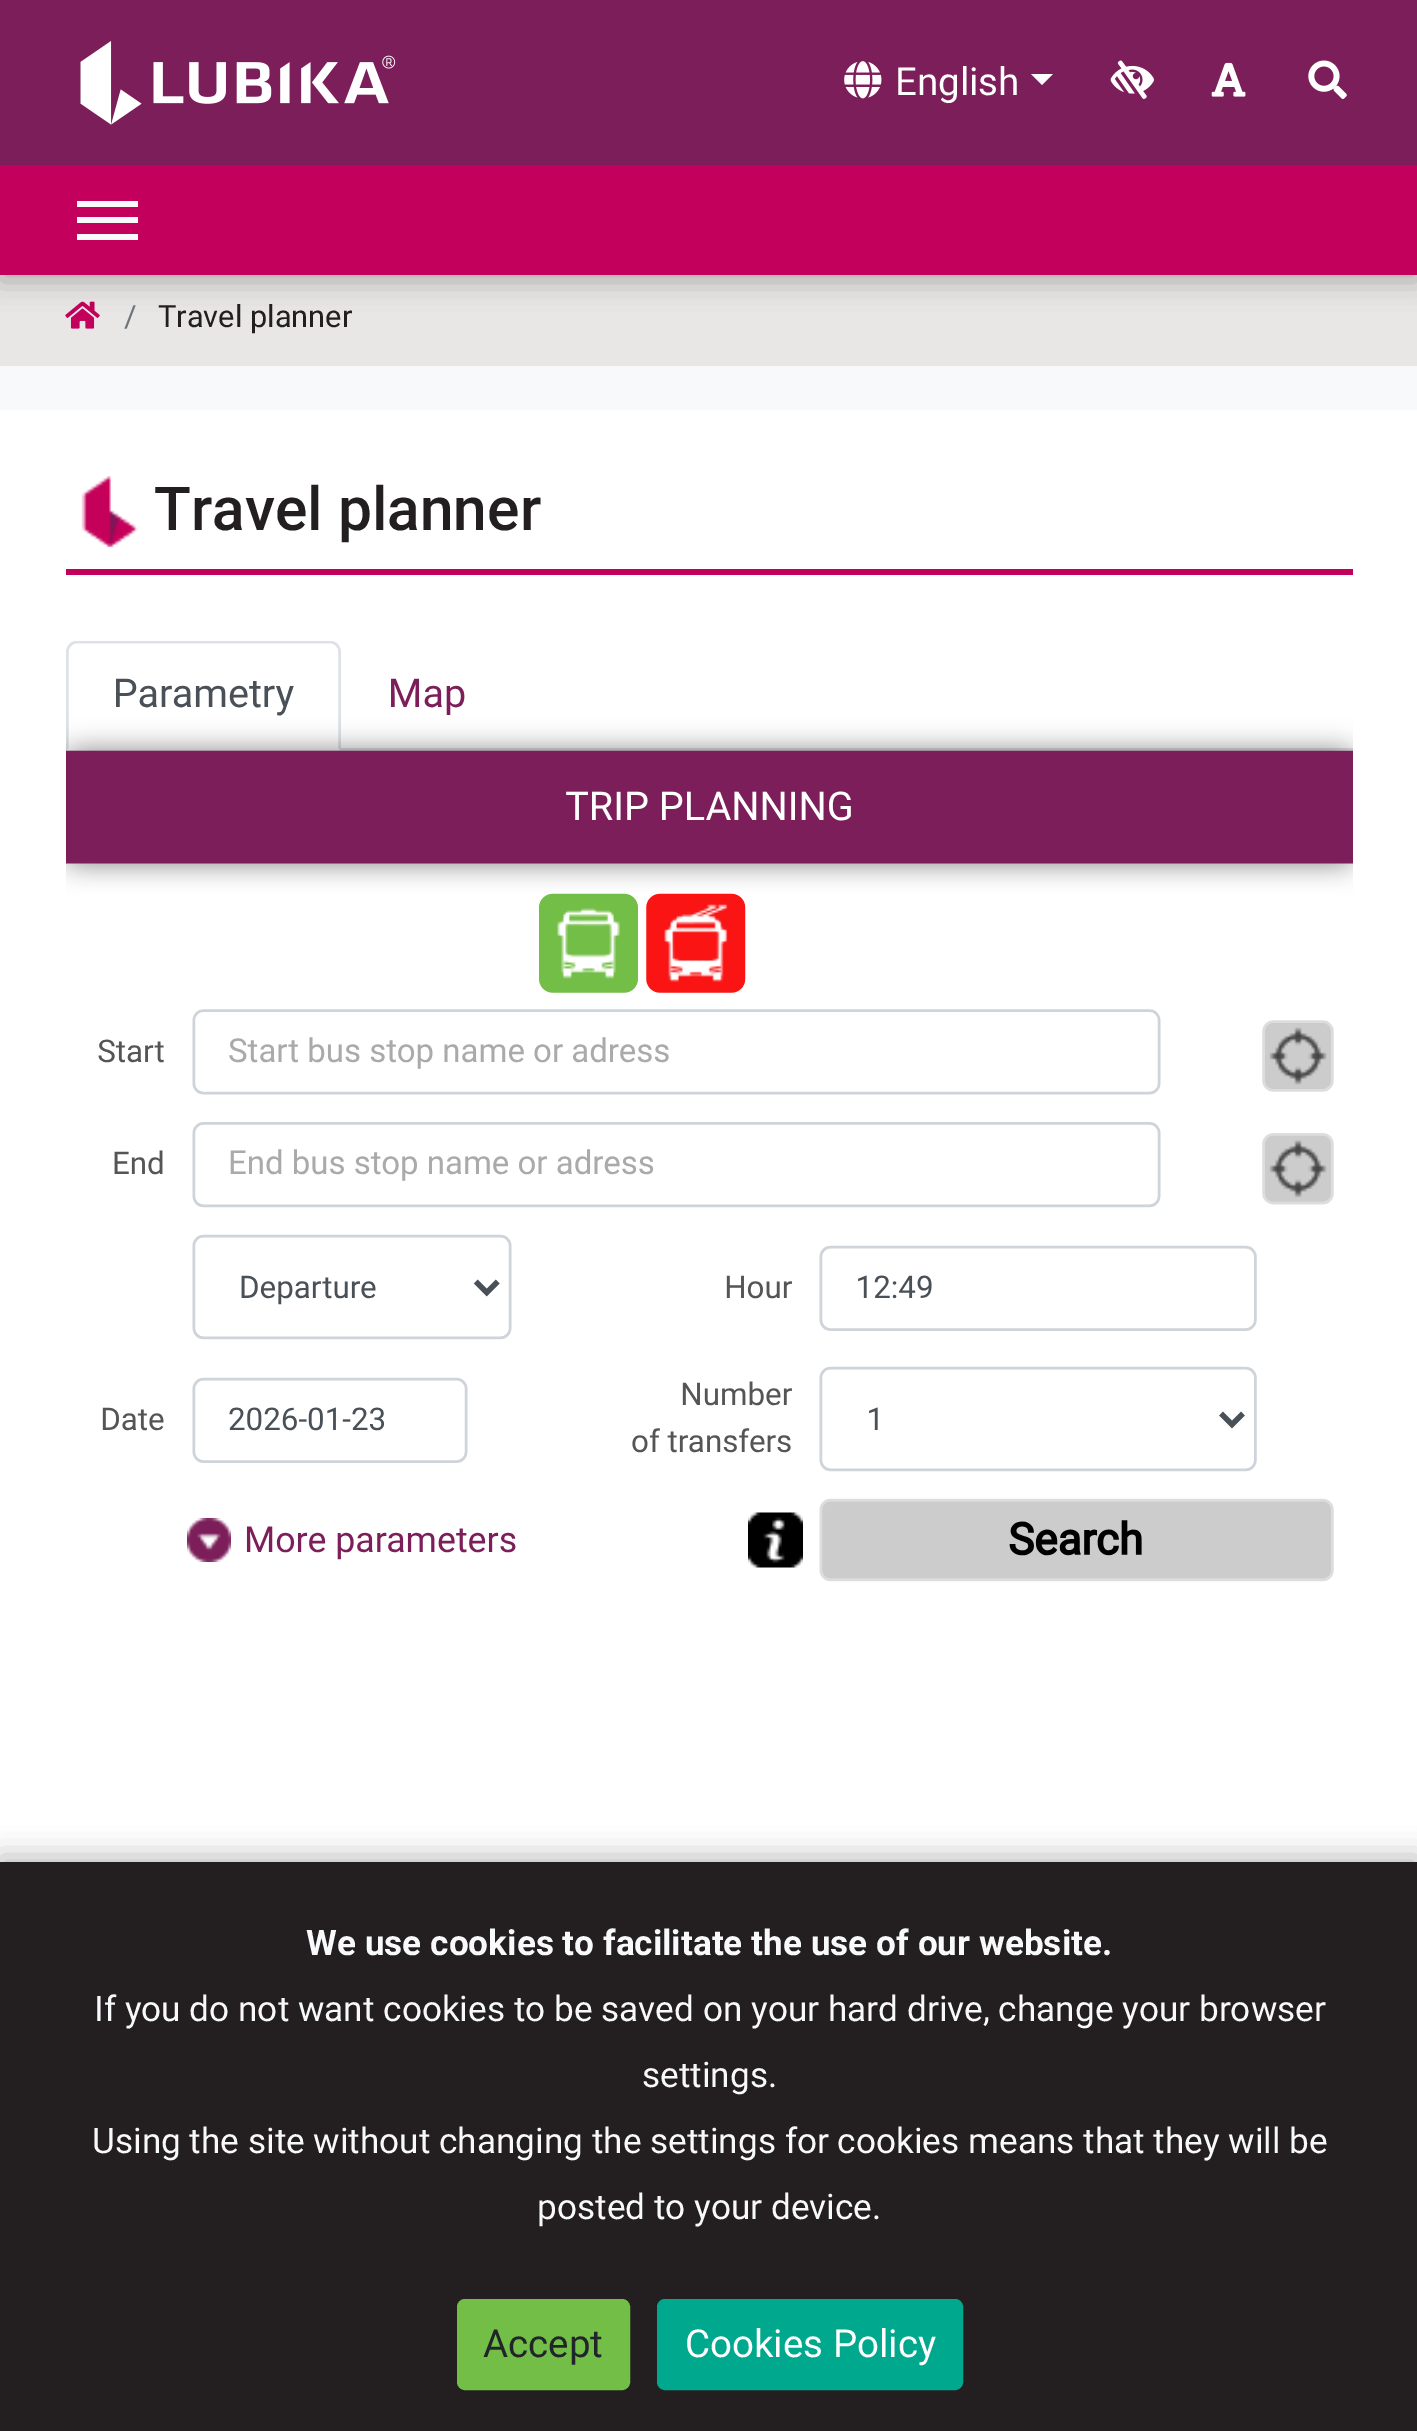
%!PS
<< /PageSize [1417 2431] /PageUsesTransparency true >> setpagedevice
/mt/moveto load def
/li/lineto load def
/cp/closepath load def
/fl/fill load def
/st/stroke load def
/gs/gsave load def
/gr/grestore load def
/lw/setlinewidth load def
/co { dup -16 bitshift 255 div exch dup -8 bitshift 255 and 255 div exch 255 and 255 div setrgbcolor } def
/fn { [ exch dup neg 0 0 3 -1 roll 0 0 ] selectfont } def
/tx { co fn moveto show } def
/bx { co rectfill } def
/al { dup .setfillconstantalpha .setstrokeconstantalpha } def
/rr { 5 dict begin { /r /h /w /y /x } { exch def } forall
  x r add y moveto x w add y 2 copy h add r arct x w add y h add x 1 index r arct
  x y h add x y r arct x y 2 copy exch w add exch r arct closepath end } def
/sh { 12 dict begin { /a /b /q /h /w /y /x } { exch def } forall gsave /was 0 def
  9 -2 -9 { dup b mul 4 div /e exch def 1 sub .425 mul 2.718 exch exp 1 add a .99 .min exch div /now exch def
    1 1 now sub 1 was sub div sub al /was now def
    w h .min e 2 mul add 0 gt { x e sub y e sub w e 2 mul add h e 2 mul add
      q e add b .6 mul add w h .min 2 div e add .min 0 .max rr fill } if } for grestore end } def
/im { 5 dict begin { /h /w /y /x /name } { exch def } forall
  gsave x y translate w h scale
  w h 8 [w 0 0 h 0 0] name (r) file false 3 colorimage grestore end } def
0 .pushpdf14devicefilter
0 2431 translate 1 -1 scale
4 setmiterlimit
0 0 1417 2431 16#F8F9FA bx
0 275 1417 91 16#E8E7E6 bx
(media/6.raw) 65 301 35 28 im
16#000000 co
0 6 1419 275 0 14 .25 sh
0 165 1417 110 16#C3005B bx
0 0 1417 165 16#7B1E59 bx
(media/1.raw) 80 41 316 84 im
(media/2.raw) 844 61 38 38 im
16#FFFFFF co
1031 74 mt 1053 74 li 1042 85 li cp fl
(media/3.raw) 1110 60 44 39 im
(media/4.raw) 1211 62 35 35 im
(media/5.raw) 1308 60 39 39 im
77 201 61 6 16#F8F9FA bx
77 217 61 6 16#F8F9FA bx
77 234 61 6 16#F8F9FA bx
0 410 1417 1452 16#FFFFFF bx
(media/7.raw) 81 476 58 72 im
66 569 1287 6 16#C3005B bx
(media/8.raw) 66 641 1287 941 im
16#000000 co
0 1856 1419 570 0 14 .25 sh
0 1862 1417 569 16#231F20 bx
16#73BE46 co
460 2302 167 85 5 rr gs fl gr
6 lw
st
16#00A88E co
660 2302 300 85 5 rr gs fl gr
st
(English) 895 95 /Roboto-Regular 38.5 16#FFFFFF tx
(/) 124 327 /Roboto-Regular 30.75 16#6C757D tx
(Travel planner) 158 327 /Roboto-Regular 30.75 16#231F20 tx
(Travel planner) 154 530 /Roboto-Medium 60.5 16#231F20 tx
(We use cookies to facilitate the use of our website.) 306 1955 /Roboto-Bold 35.2 16#F8F9FA tx
(If you do not want cookies to be saved on your hard drive, change your browser) 94 2021 /Roboto-Regular 35.2 16#F8F9FA tx
(settings.) 642 2087 /Roboto-Regular 35.2 16#F8F9FA tx
(Using the site without changing the settings for cookies means that they will be) 92 2153 /Roboto-Regular 35.2 16#F8F9FA tx
(posted to your device.) 537 2219 /Roboto-Regular 35.2 16#F8F9FA tx
(Accept) 483 2357 /Roboto-Regular 38.5 16#212529 tx
(Cookies Policy) 685 2357 /Roboto-Regular 38.5 16#FFFFFF tx
.poppdf14devicefilter showpage
